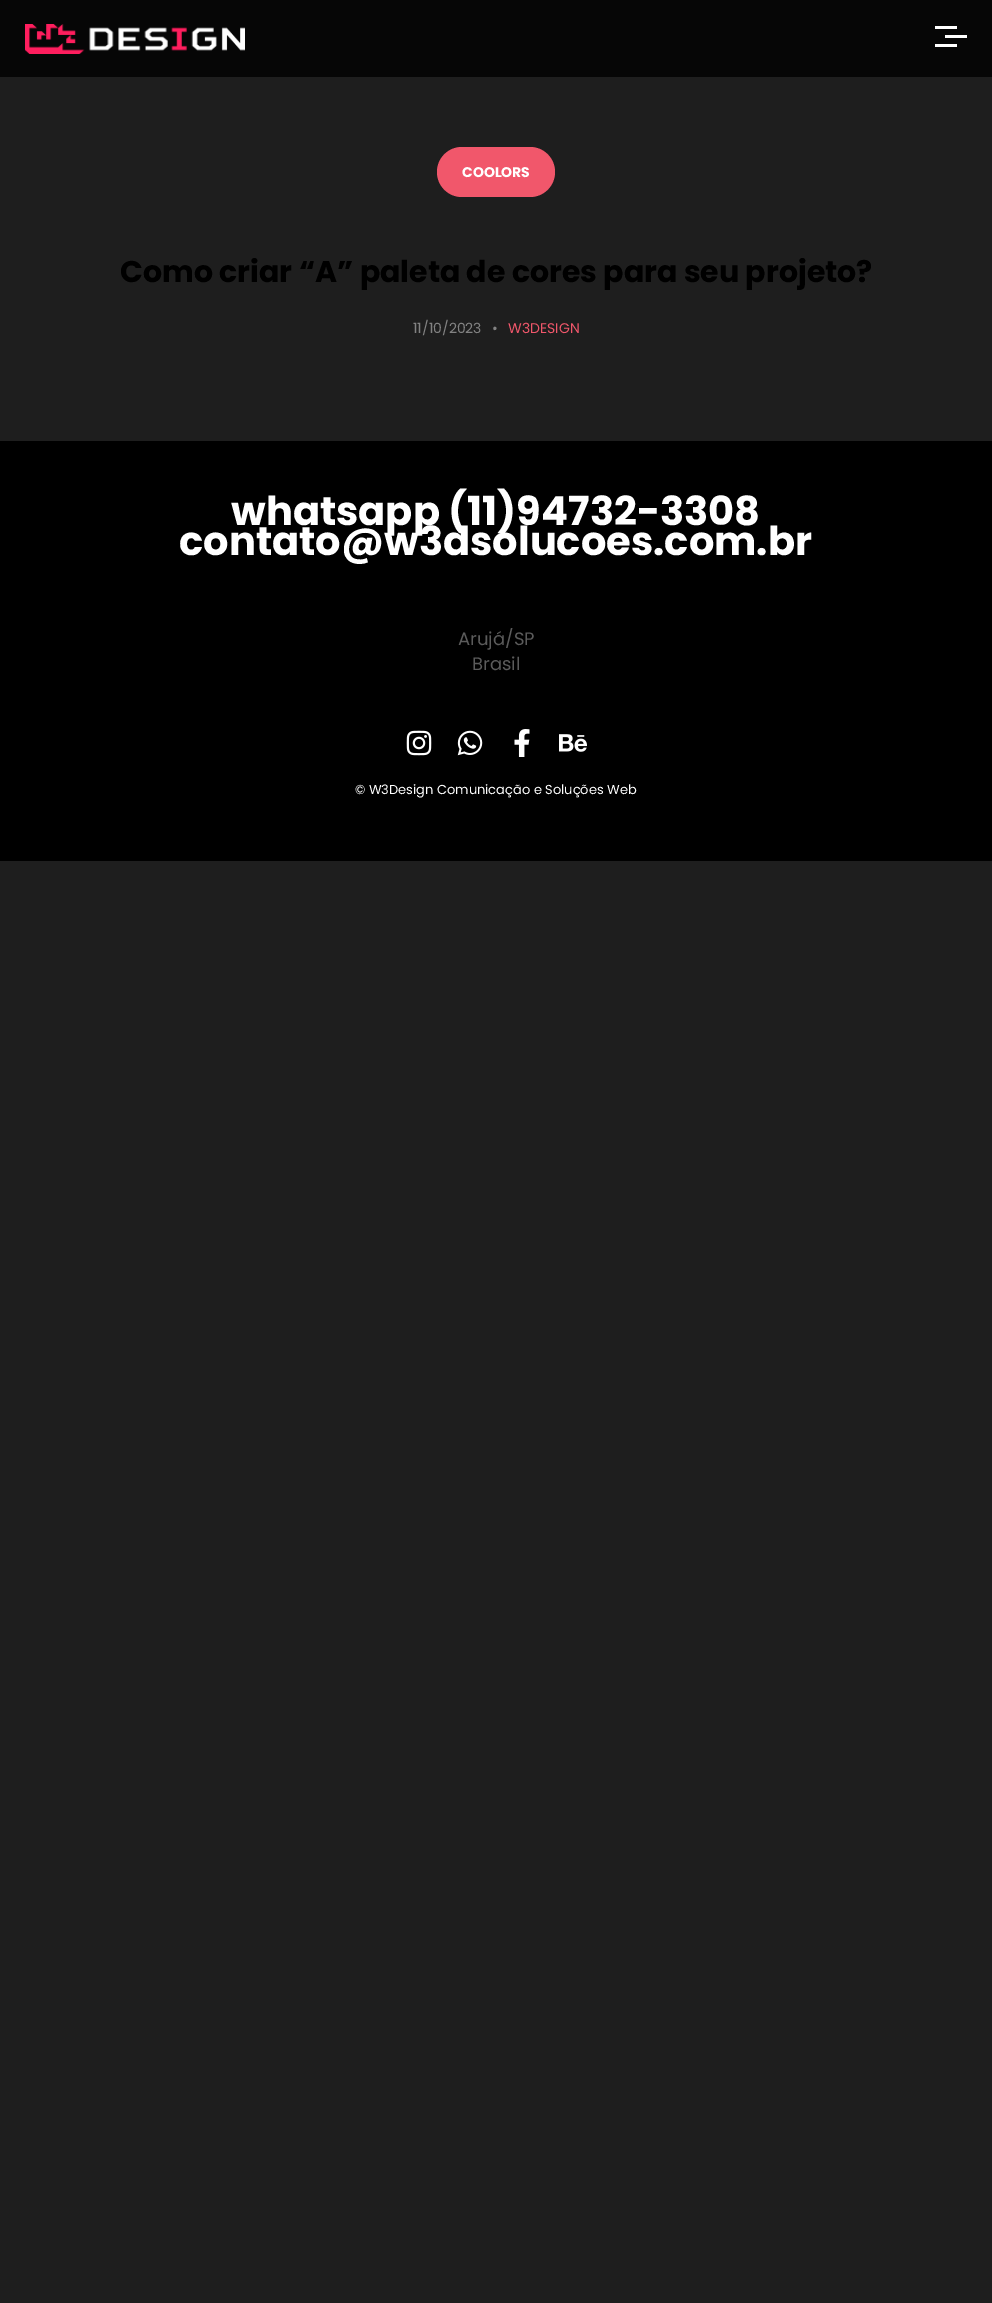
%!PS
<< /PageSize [992 2303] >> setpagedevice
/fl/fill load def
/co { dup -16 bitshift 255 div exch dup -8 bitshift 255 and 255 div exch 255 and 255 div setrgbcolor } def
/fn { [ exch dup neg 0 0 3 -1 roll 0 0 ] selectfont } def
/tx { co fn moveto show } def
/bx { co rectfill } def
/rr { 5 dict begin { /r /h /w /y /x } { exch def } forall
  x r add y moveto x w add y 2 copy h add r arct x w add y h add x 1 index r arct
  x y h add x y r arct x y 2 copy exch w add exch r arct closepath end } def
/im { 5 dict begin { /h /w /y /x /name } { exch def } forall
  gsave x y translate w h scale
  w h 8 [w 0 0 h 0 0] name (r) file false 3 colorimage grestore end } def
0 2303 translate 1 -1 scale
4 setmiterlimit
0 0 992 2303 16#1E1E1E bx
0 0 992 77 16#060606 bx
(media/1.raw) 25 24 220 30 im
935 26 22 3 16#FFFFFF bx
945 35 22 3 16#FFFFFF bx
935 44 22 3 16#FFFFFF bx
16#F1576B co
437 147 118 50 25 rr fl
0 441 992 420 16#000000 bx
(media/2.raw) 406 730 26 26 im
(media/3.raw) 457 730 26 26 im
(media/4.raw) 514 729 16 28 im
(media/5.raw) 559 734 28 18 im
(COOLORS) 462 177 /Poppins-Bold 14 16#FFFFFF tx
(Como criar “A” paleta de cores para seu projeto?) 120 282 /Poppins-Bold 30 16#000000 tx
(11/10/2023) 413 333 /Poppins-Regular 14 16#828282 tx
(•) 492 333 /Poppins-Regular 14 16#828282 tx
(W3DESIGN) 508 333 /Poppins-Regular 14 16#F1576B tx
(whatsapp \(11\)94732-3308) 231 525 /Poppins-Bold 40 16#FFFFFF tx
(contato@w3dsolucoes.com.br) 179 555 /Poppins-Bold 40 16#FFFFFF tx
(Arujá/SP) 458 645 /Poppins-Regular 18 16#5B5B5B tx
(Brasil) 472 670 /Poppins-Regular 18 16#5B5B5B tx
(© W3Design Comunicação e Soluções Web) 355 794 /Poppins-Regular 13 16#FFFFFF tx
showpage
